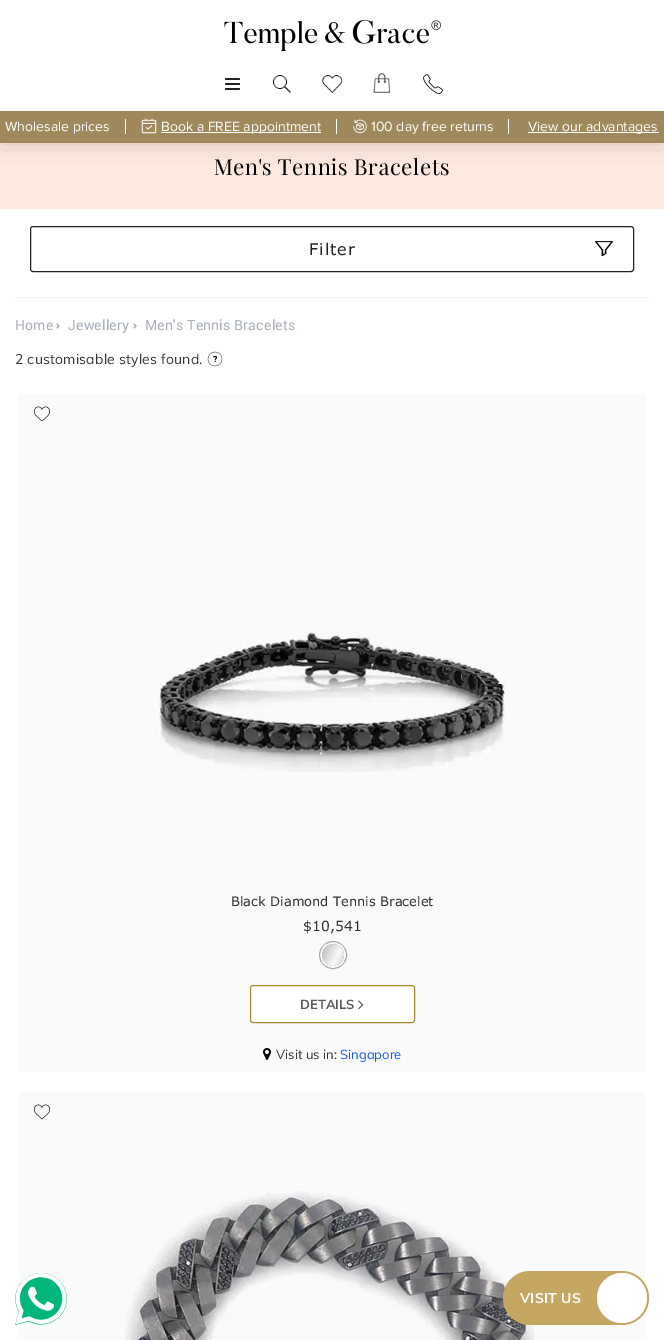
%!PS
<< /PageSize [664 1340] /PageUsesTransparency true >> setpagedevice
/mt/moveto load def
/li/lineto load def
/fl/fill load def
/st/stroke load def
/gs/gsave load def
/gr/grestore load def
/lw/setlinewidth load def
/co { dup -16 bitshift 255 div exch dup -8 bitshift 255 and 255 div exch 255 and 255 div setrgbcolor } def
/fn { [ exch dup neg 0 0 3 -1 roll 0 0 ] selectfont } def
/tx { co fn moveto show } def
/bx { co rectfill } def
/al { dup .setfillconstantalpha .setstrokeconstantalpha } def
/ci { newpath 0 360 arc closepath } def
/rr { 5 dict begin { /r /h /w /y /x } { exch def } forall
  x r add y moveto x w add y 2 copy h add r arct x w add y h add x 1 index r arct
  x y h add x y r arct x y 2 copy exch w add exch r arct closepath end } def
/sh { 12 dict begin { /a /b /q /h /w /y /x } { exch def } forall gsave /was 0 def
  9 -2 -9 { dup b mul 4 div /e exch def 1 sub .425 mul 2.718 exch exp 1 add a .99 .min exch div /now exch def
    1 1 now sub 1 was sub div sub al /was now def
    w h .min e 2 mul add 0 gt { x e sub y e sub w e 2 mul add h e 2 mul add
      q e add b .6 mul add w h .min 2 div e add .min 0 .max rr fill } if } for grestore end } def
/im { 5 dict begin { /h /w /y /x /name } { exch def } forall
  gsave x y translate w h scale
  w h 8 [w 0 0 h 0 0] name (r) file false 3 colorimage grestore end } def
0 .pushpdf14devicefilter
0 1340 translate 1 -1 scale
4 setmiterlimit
0 0 664 1340 16#FFFFFF bx
0 143 664 66 16#FDE9E0 bx
16#000000 co
0 0 664 143 0 12 .15 sh
0 0 664 111 16#FFFFFF bx
(media/1.raw) 224 19 217 32 im
16#222222 co
225 78 15 2 1 rr fl
225 83 15 2 1 rr fl
225 88 15 2 1 rr fl
(media/2.raw) 273 75 18 18 im
(media/3.raw) 322 75 21 18 im
(media/4.raw) 373 73 18 20 im
(media/5.raw) 423 74 20 20 im
0 111 664 32 16#A0885D bx
125 119 1 15 16#FFFFFF bx
(media/6.raw) 141 118 16 16 im
336 119 1 15 16#FFFFFF bx
161 132 160 1 16#FFFFFF bx
(media/7.raw) 353 119 14 15 im
508 119 1 15 16#FFFFFF bx
528 132 131 1 16#FFFFFF bx
16#222222 co
30.5 226.5 603 45 2.5 rr st
(media/8.raw) 595 241 18 16 im
15 297 634 1 16#EEEEEE bx
16#A9AFBA co
1.1 lw
1 setlinecap
1 setlinejoin
57 324 mt 59 326 li 57 328 li st
134 324 mt 136 326 li 134 328 li st
(media/9.raw) 207 351 16 16 im
19 394 626 678 16#FAFAFA bx
(media/10.raw) 34 406 16 16 im
(media/11.raw) 159 632 346 140 im
16#AAAAAA co
1 lw
0 setlinecap
0 setlinejoin
333 955 13.5 ci st
333 955 11 ci fl
(media/12.raw) 322 944 22 22 im
16#FFFFFF co
250.5 985.5 164 37 2.5 rr gs fl gr
16#A7892F co
st
(media/13.raw) 358 1000 6 10 im
(media/14.raw) 263 1048 8 12 im
19 1092 626 248 16#FAFAFA bx
(media/10.raw) 34 1104 16 16 im
(media/15.raw) 125 1191 410 149 im
(media/16.raw) 15 1273 52 52 im
16#C5A762 co
503 1271 146 54 27 rr fl
16#FFFFFF co
622 1298 25 ci fl
(Wholesale prices) 5 131 /ProximaNova-Regular 14 16#FFFFFF tx
(Book a FREE appointment) 161 131 /ProximaNova-Regular 14 16#FFFFFF tx
(100 day free returns) 371 131 /ProximaNova-Regular 14 16#FFFFFF tx
(View our advantages) 528 131 /ProximaNova-Regular 14 16#FFFFFF tx
/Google-Regular 22 fn
16#000000 co
214 175 mt .55 0 (Men's Tennis Bracelets) ashow
/Verdana-Regular 16 fn
16#222222 co
309 255 mt 1 0 (Filter) ashow
/Roboto-Regular 14 fn
16#A9AFBA co
15 330 mt .2 0 (Home) ashow
68 330 mt .2 0 (Jewellery) ashow
145 330 mt .2 0 (Men's Tennis Bracelets) ashow
/Muli-Regular 14 fn
16#333333 co
15 364 mt .2 0 (2 customisable styles found.) ashow
(Black Diamond Tennis Bracelet) 231 906 /Verdana-Regular 13 16#333333 tx
($10,541) 303 931 /Verdana-Regular 14 16#333333 tx
(DETAILS) 300 1009 /Muli-Bold 13 16#5B5959 tx
(Visit us in:) 276 1059 /Muli-Regular 13 16#333333 tx
(Singapore) 340 1059 /Muli-Regular 13 16#1155EE tx
/Muli-Bold 14 fn
16#FFFFFF co
520 1303 mt .25 0 (VISIT US) ashow
.poppdf14devicefilter showpage
